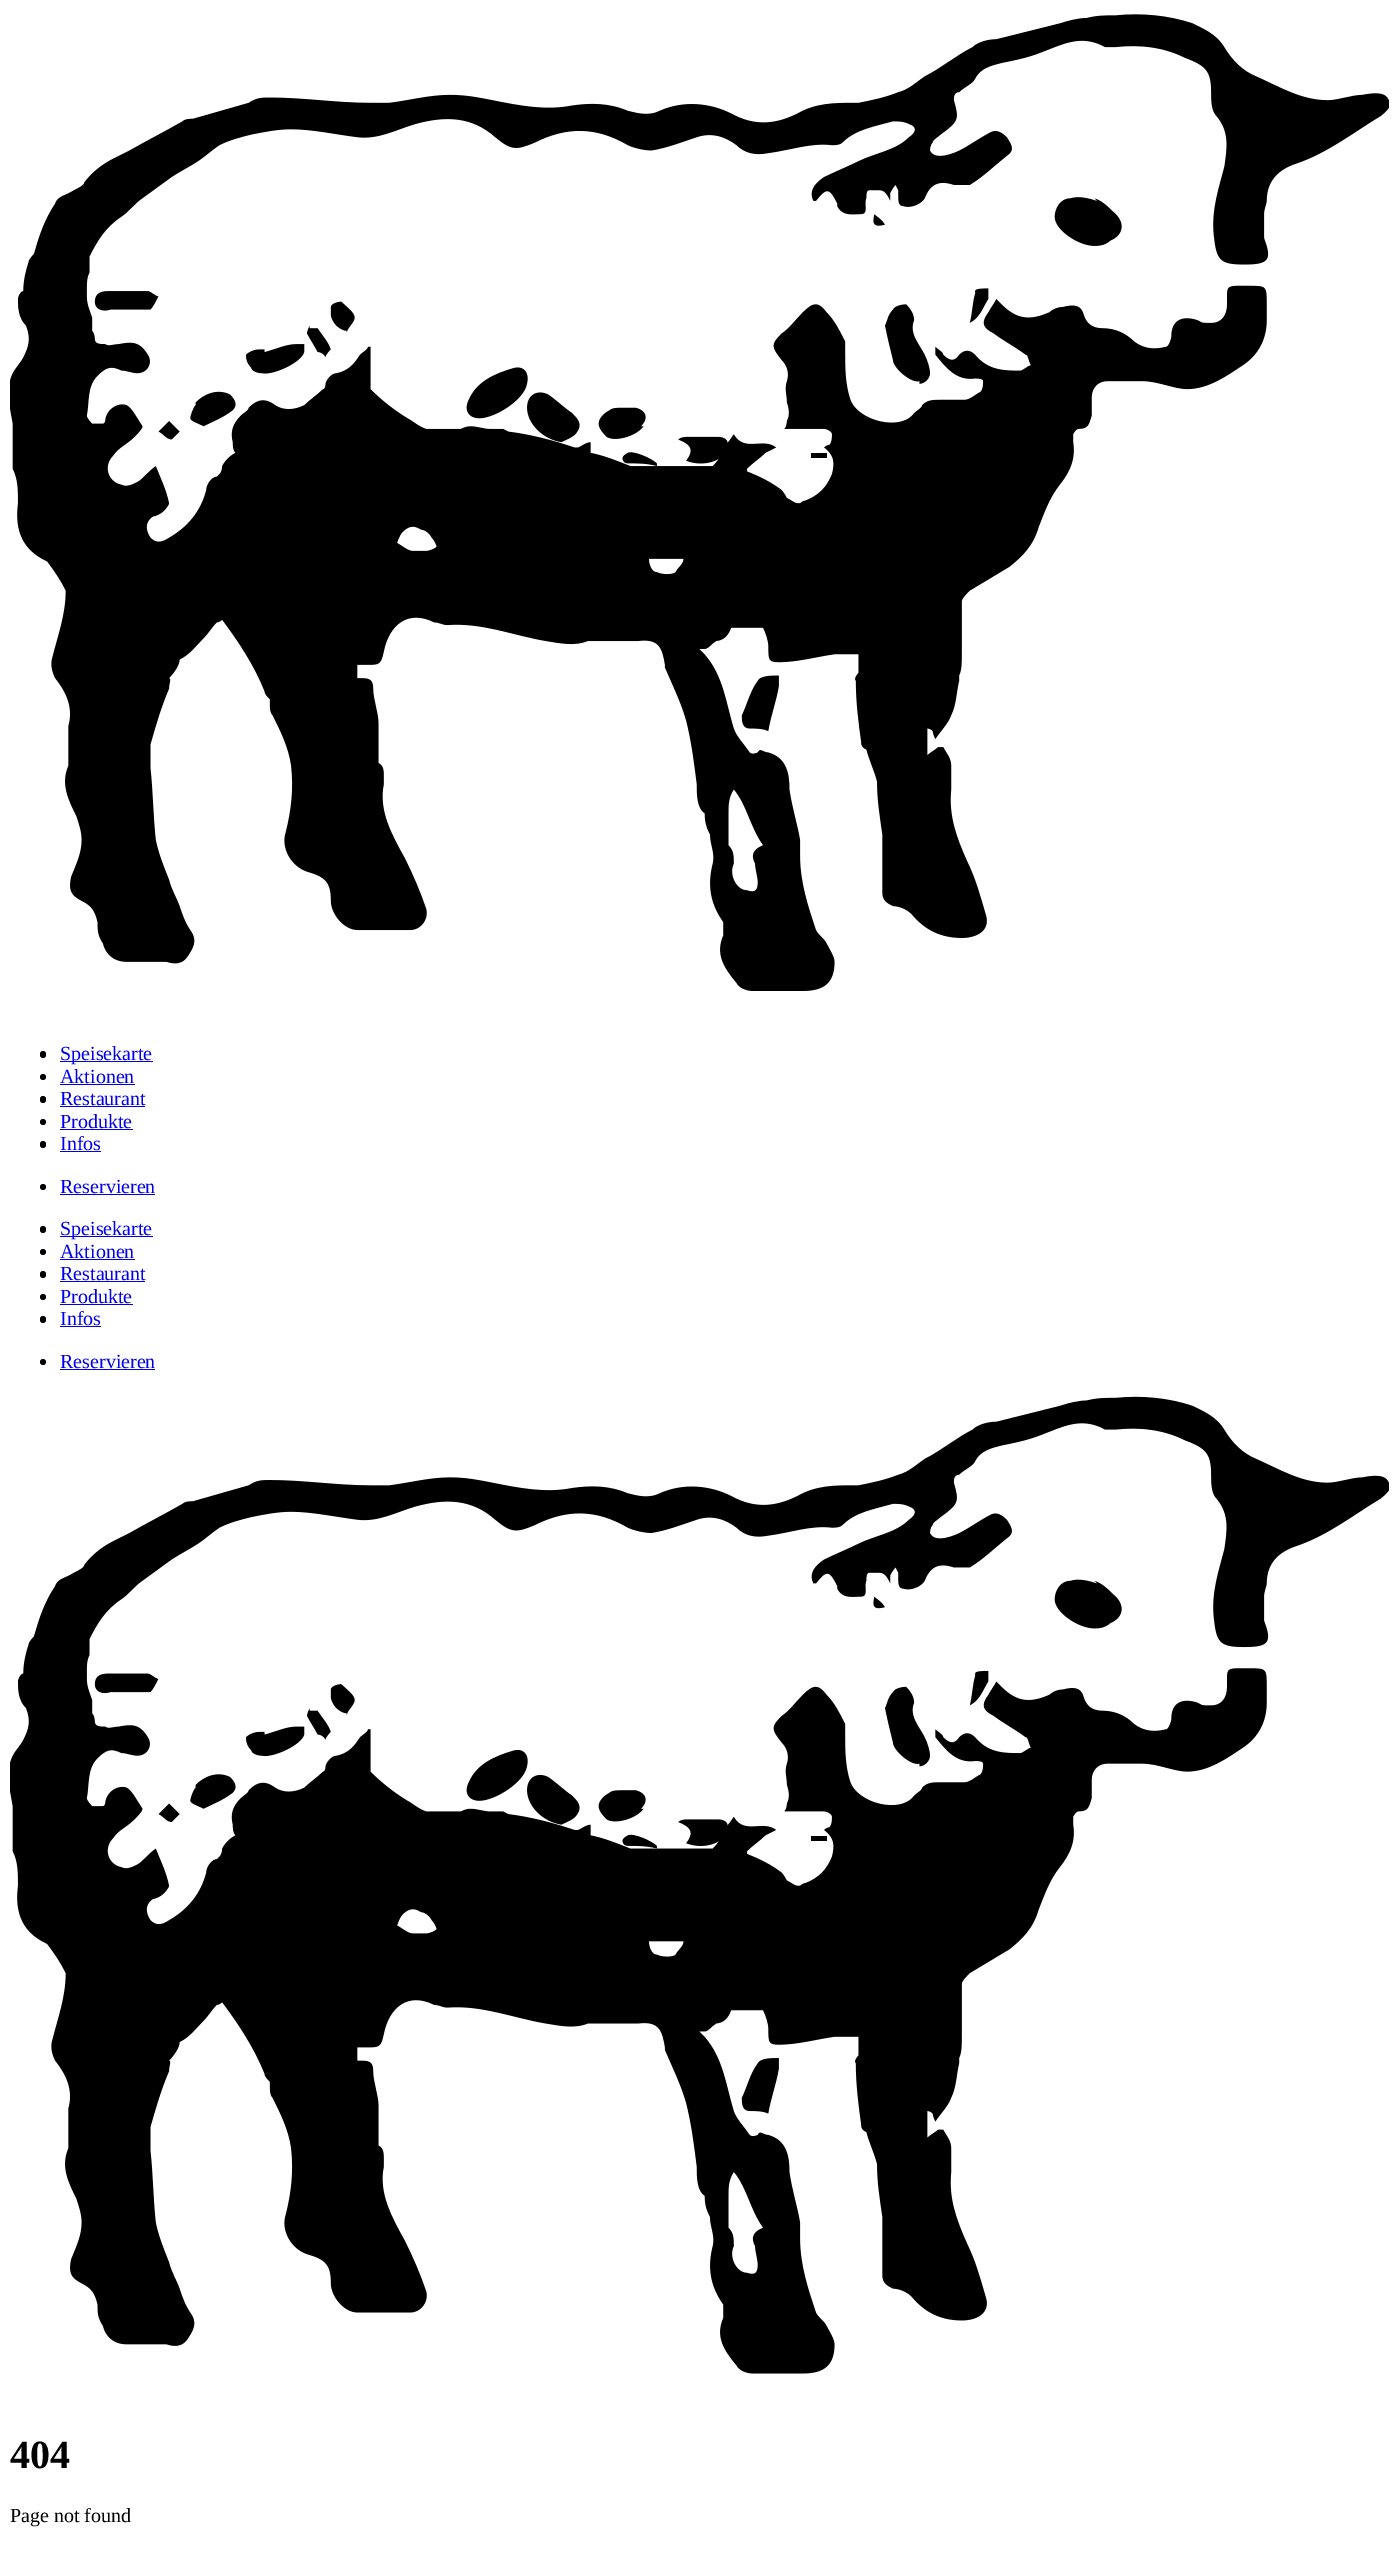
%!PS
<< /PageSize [1398 2552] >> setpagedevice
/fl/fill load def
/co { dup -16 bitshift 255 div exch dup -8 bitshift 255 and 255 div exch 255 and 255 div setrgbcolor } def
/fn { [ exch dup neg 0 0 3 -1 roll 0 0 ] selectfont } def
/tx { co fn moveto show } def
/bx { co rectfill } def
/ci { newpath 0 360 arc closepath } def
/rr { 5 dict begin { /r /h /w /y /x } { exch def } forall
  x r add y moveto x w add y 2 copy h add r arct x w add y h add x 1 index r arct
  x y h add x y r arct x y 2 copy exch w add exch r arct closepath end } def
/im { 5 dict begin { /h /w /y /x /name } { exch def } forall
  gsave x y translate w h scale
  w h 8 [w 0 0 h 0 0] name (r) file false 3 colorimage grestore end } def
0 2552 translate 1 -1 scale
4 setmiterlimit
0 0 1398 2552 16#FFFFFF bx
(media/1.raw) 10 14 1379 977 im
16#000000 co
40 1051 6 7 3 rr fl
60 1061 93 1 16#0000EE bx
16#000000 co
43 1077 3 ci fl
60 1084 75 1 16#0000EE bx
16#000000 co
40 1096 6 7 3 rr fl
60 1106 85 1 16#0000EE bx
16#000000 co
43 1122 3 ci fl
60 1129 73 1 16#0000EE bx
16#000000 co
40 1141 6 7 3 rr fl
60 1151 41 1 16#0000EE bx
16#000000 co
43 1187 3 ci fl
60 1194 95 1 16#0000EE bx
16#000000 co
40 1226 6 7 3 rr fl
60 1236 93 1 16#0000EE bx
16#000000 co
43 1252 3 ci fl
60 1259 75 1 16#0000EE bx
16#000000 co
40 1271 6 7 3 rr fl
60 1281 85 1 16#0000EE bx
16#000000 co
43 1297 3 ci fl
60 1304 73 1 16#0000EE bx
16#000000 co
40 1316 6 7 3 rr fl
60 1326 41 1 16#0000EE bx
16#000000 co
43 1362 3 ci fl
60 1369 95 1 16#0000EE bx
(media/2.raw) 10 1396 1379 978 im
(Speisekarte) 60 1060 /LiberationSerif-Regular 20 16#0000EE tx
(Aktionen) 60 1083 /LiberationSerif-Regular 20 16#0000EE tx
(Restaurant) 60 1105 /LiberationSerif-Regular 20 16#0000EE tx
(Produkte) 60 1128 /LiberationSerif-Regular 20 16#0000EE tx
(Infos) 60 1150 /LiberationSerif-Regular 20 16#0000EE tx
(Reservieren) 60 1193 /LiberationSerif-Regular 20 16#0000EE tx
(Speisekarte) 60 1235 /LiberationSerif-Regular 20 16#0000EE tx
(Aktionen) 60 1258 /LiberationSerif-Regular 20 16#0000EE tx
(Restaurant) 60 1280 /LiberationSerif-Regular 20 16#0000EE tx
(Produkte) 60 1303 /LiberationSerif-Regular 20 16#0000EE tx
(Infos) 60 1325 /LiberationSerif-Regular 20 16#0000EE tx
(Reservieren) 60 1368 /LiberationSerif-Regular 20 16#0000EE tx
(404) 10 2468 /LiberationSerif-Bold 40 16#000000 tx
(Page not found) 10 2522 /LiberationSerif-Regular 20 16#000000 tx
showpage
